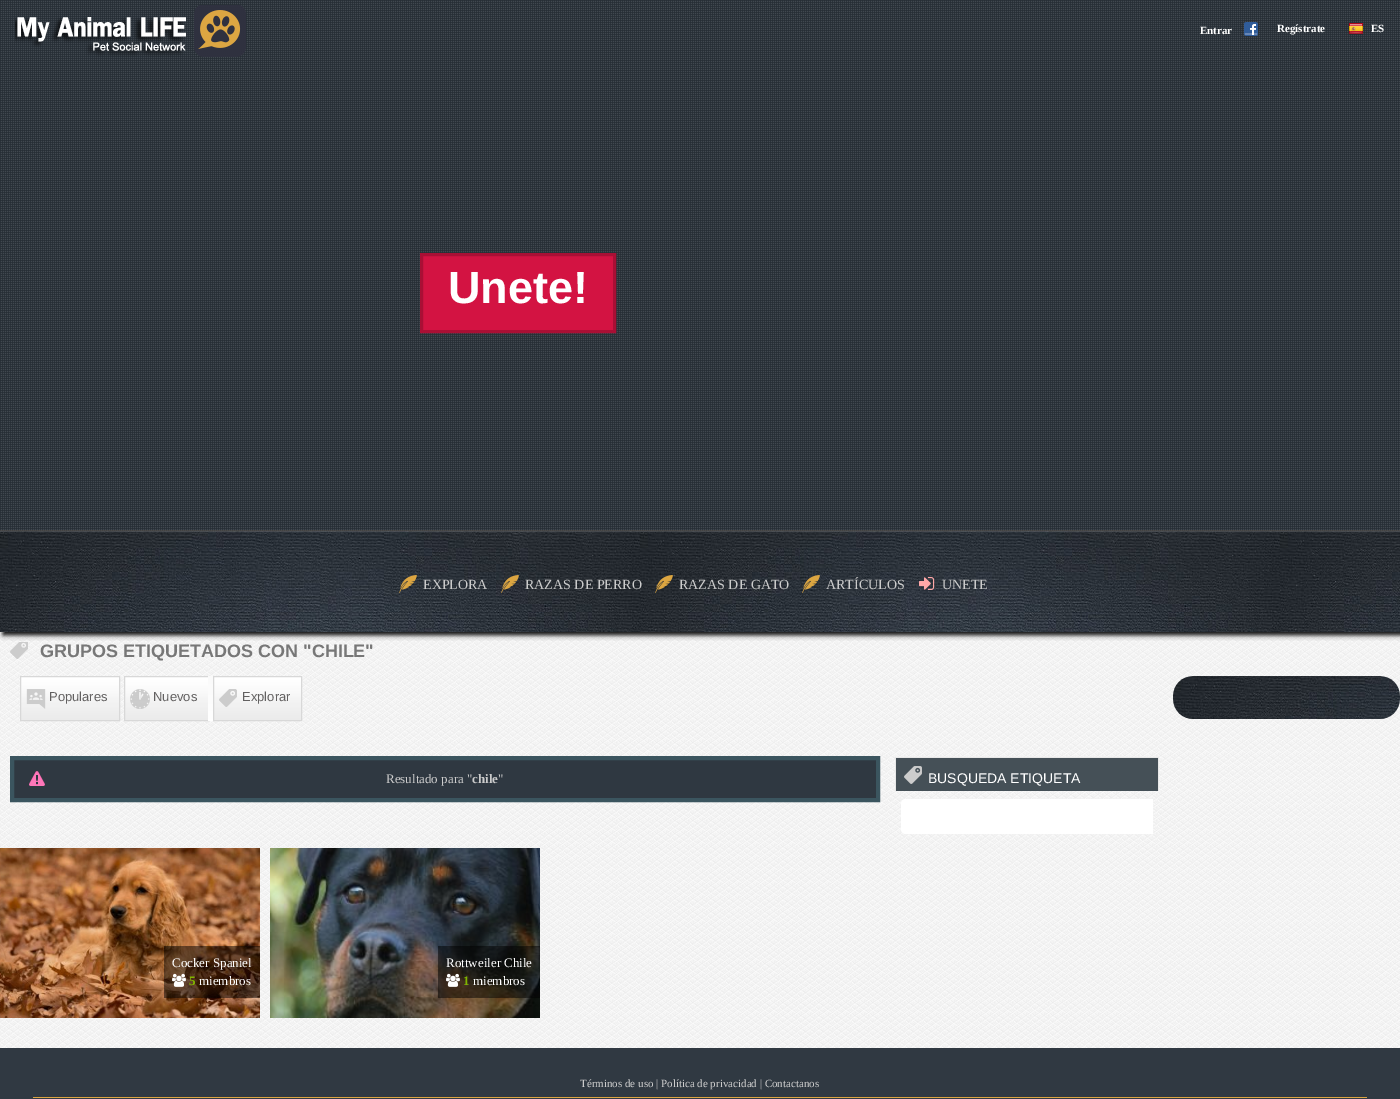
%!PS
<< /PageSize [1400 1099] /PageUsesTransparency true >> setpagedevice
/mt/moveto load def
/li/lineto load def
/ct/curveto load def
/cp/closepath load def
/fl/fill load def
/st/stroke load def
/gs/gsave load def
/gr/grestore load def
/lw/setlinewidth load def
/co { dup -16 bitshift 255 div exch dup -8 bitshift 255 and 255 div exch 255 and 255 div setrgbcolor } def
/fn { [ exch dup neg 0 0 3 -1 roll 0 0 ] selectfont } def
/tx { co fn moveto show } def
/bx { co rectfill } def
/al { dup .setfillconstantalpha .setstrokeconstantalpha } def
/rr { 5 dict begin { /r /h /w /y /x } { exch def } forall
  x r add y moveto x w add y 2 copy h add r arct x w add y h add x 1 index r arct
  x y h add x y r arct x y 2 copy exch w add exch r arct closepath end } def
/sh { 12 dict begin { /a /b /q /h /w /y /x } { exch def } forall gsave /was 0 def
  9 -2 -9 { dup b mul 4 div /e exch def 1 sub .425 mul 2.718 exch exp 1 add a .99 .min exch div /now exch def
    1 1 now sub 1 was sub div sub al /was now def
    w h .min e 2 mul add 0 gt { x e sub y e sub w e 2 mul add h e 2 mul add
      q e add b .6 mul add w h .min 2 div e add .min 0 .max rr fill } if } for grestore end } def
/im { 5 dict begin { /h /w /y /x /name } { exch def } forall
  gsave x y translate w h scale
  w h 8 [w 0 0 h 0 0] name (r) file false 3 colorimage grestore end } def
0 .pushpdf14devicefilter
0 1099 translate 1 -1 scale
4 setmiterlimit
0 0 1400 1099 16#303942 bx
0 530 1400 1 16#555555 bx
(media/5.raw) 0 632 1400 416 im
(media/6.raw) 0 531 1400 101 im
0.2 al
0 531 1400 1 16#F6F6F6 bx
gs
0 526 mt 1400 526 li 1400 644 li 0 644 li cp 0 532 mt 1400 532 li 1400 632 li 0 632 li cp eoclip newpath
1 al
16#000000 co
3 535 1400 100 0 2.5 1 sh
gr
0.1 al
0 0 1400 531 16#000000 bx
1 al
(media/1.raw) 0 0 1400 531 im
(media/2.raw) 15 5 231 52 im
(media/3.raw) 1244 22 14 14 im
(media/4.raw) 1349 23 14 12 im
16#D31342 co
421.5 254.5 mt 614.5 254.5 li 614.5 331.5 li 421.5 331.5 li cp gs fl gr
16#A90F35 co
3 lw
st
(media/7.raw) 399 575 18 18 im
(media/8.raw) 501 575 18 18 im
(media/9.raw) 655 575 18 18 im
(media/10.raw) 802 575 18 18 im
(media/11.raw) 919 577 16 13 im
(media/12.raw) 10 642 18 17 im
(media/13.raw) 21 677 98 43 im
16#D8D8D8 co
1 lw
20.5 676.5 99 44 rectstroke
(media/14.raw) 26 689 20 20 im
(media/15.raw) 125 677 83 43 im
124.5 676.5 84 44 rectstroke
(media/16.raw) 130 689 20 20 im
(media/17.raw) 208 676 5 45 im
(media/18.raw) 214 677 87 43 im
213.5 676.5 88 44 rectstroke
(media/19.raw) 219 689 18 18 im
14 760 862 38 16#2F3841 bx
(media/20.raw) 29 771 16 15 im
16#3B555F co
4 lw
12 758 866 42 rectstroke
896 758 262 33 16#455057 bx
895 757 264 1 16#E8E8E8 bx
1158 757 1 34 16#E8E8E8 bx
895 757 1 34 16#E8E8E8 bx
(media/21.raw) 904 766 18 18 im
16#FFFFFF co
906 799 mt 1153 799 li 1153 834 li 906 834 li 903 834 901 832 901 829 ct 901 804 li 901 801 903 799 906 799 ct cp fl
(media/22.raw) 0 848 260 170 im
0.5 al
164 946 96 52 16#000000 bx
1 al
(media/23.raw) 172 973 14 14 im
(media/24.raw) 270 848 270 170 im
0.5 al
438 946 102 52 16#000000 bx
1 al
(media/25.raw) 446 973 14 14 im
(media/26.raw) 1173 676 227 43 im
33 1097 1334 1 16#DCA642 bx
(Entrar) 1200 34 /LiberationSerif-Bold 11 16#FFFFFF tx
(Regístrate) 1277 32 /LiberationSerif-Bold 11 16#FFFFFF tx
(ES) 1371 32 /LiberationSerif-Bold 11 16#FFFFFF tx
(Unete!) 448 303 /LiberationSans-Bold 45 16#FFFFFF tx
(EXPLORA) 423 589 /LiberationSerif-Regular 14 16#CCCCCC tx
(RAZAS DE PERRO) 525 589 /LiberationSerif-Regular 14 16#CCCCCC tx
(RAZAS DE GATO) 679 589 /LiberationSerif-Regular 14 16#CCCCCC tx
(ARTÍCULOS) 826 589 /LiberationSerif-Regular 14 16#CCCCCC tx
(UNETE) 942 589 /LiberationSerif-Regular 14 16#CCCCCC tx
(GRUPOS ETIQUETADOS CON "CHILE") 40 657 /LiberationSans-Bold 18 16#777777 tx
(Populares) 49 701 /LiberationSans-Regular 13 16#626060 tx
(Nuevos) 153 701 /LiberationSans-Regular 13 16#626060 tx
(Explorar) 242 701 /LiberationSans-Regular 13 16#626060 tx
(Resultado para ") 386 783 /LiberationSerif-Regular 13 16#CCCCCC tx
(chile) 472 783 /LiberationSerif-Bold 13 16#CCCCCC tx
(") 498 783 /LiberationSerif-Regular 13 16#CCCCCC tx
(BUSQUEDA ETIQUETA) 928 783 /LiberationSans-Regular 14 16#FFFFFF tx
(Cocker Spaniel) 172 967 /LiberationSerif-Regular 13 16#FFFFFF tx
(5) 189 985 /LiberationSerif-Bold 13 16#80B400 tx
(miembros) 199 985 /LiberationSerif-Regular 13 16#FFFFFF tx
(Rottweiler Chile) 446 967 /LiberationSerif-Regular 13 16#FFFFFF tx
(1) 463 985 /LiberationSerif-Bold 13 16#80B400 tx
(miembros) 473 985 /LiberationSerif-Regular 13 16#FFFFFF tx
(Términos de uso | Política de privacidad | Contactanos) 580 1087 /LiberationSerif-Regular 11 16#CCCCCC tx
.poppdf14devicefilter showpage
